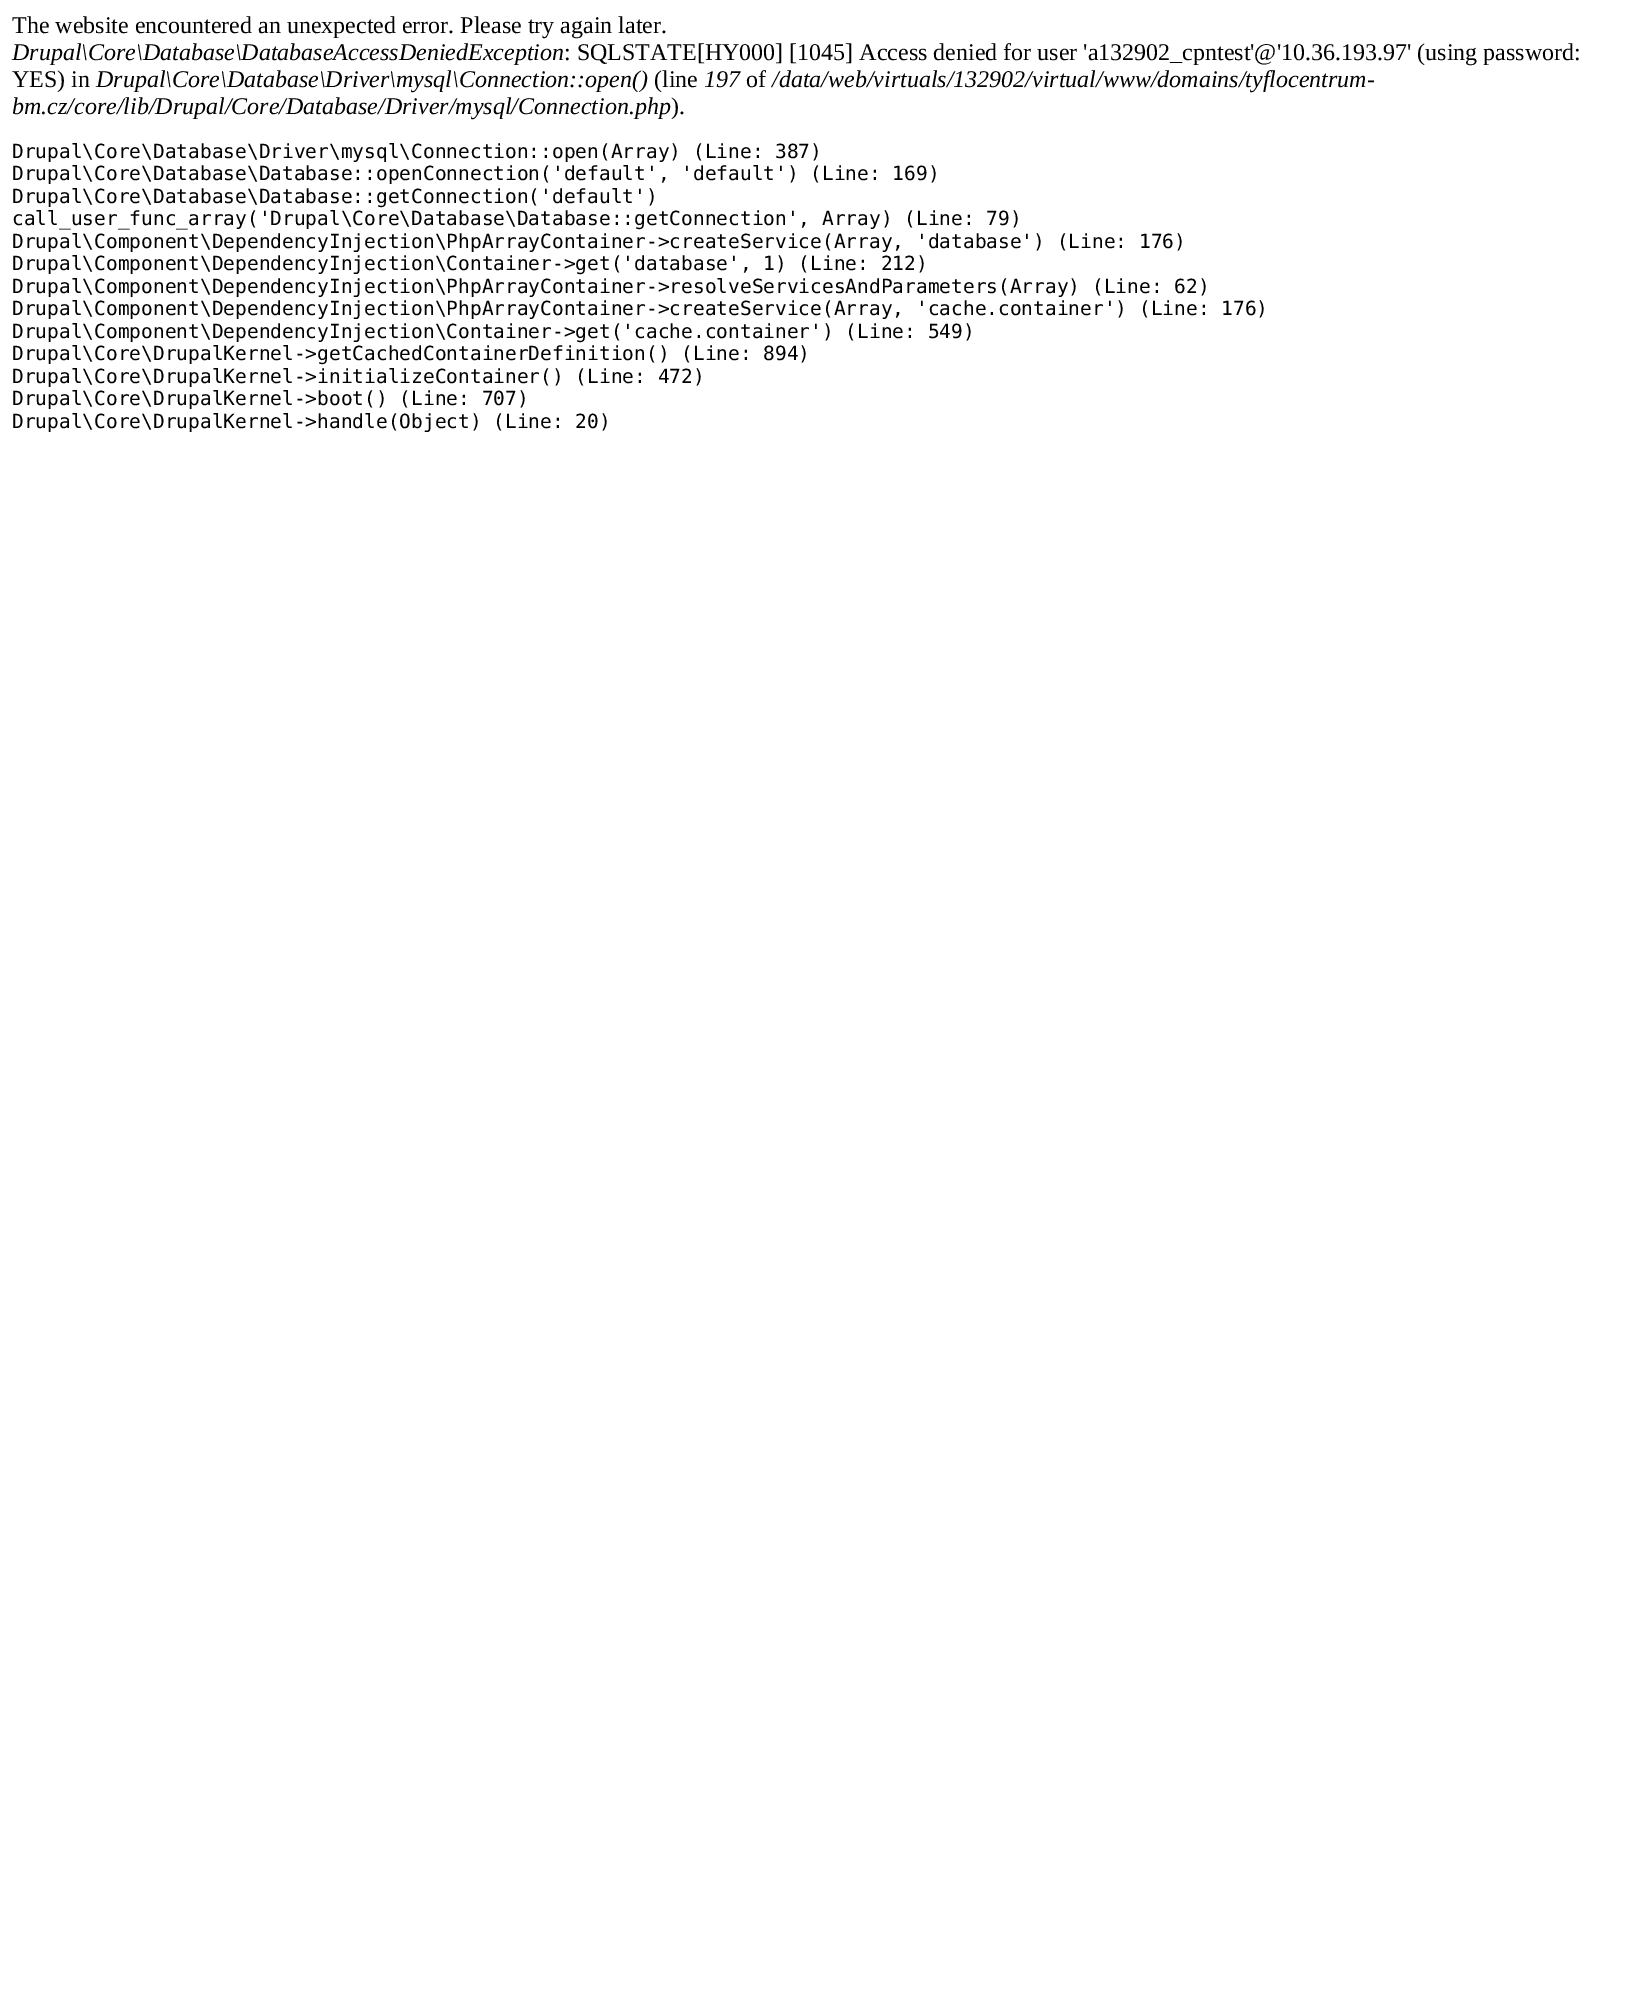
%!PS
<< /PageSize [1635 2004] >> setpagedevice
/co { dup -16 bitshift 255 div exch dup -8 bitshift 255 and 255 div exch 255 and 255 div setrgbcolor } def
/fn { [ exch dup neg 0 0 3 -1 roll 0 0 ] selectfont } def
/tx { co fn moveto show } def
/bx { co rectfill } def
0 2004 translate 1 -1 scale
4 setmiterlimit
0 0 1635 2004 16#FFFFFF bx
(The website encountered an unexpected error. Please try again later.) 12 33 /LiberationSerif-Regular 24 16#000000 tx
(Drupal\\Core\\Database\\DatabaseAccessDeniedException) 12 60 /LiberationSerif-Italic 24 16#000000 tx
(: SQLSTATE[HY000] [1045] Access denied for user 'a132902_cpntest'@'10.36.193.97' \(using password:) 564 60 /LiberationSerif-Regular 24 16#000000 tx
(YES\) in) 12 87 /LiberationSerif-Regular 24 16#000000 tx
(Drupal\\Core\\Database\\Driver\\mysql\\Connection::open\(\)) 96 87 /LiberationSerif-Italic 24 16#000000 tx
(\(line) 654 87 /LiberationSerif-Regular 24 16#000000 tx
(197) 704 87 /LiberationSerif-Italic 24 16#000000 tx
(of) 746 87 /LiberationSerif-Regular 24 16#000000 tx
(/data/web/virtuals/132902/virtual/www/domains/tyflocentrum-) 772 87 /LiberationSerif-Italic 24 16#000000 tx
(bm.cz/core/lib/Drupal/Core/Database/Driver/mysql/Connection.php) 12 114 /LiberationSerif-Italic 24 16#000000 tx
(\).) 671 114 /LiberationSerif-Regular 24 16#000000 tx
(Drupal\\Core\\Database\\Driver\\mysql\\Connection::open\(Array\) \(Line: 387\)) 12 158 /DejaVuSansMono-Regular 19.5 16#000000 tx
(Drupal\\Core\\Database\\Database::openConnection\('default', 'default'\) \(Line: 169\)) 12 180 /DejaVuSansMono-Regular 19.5 16#000000 tx
(Drupal\\Core\\Database\\Database::getConnection\('default'\)) 12 203 /DejaVuSansMono-Regular 19.5 16#000000 tx
(call_user_func_array\('Drupal\\Core\\Database\\Database::getConnection', Array\) \(Line: 79\)) 12 225 /DejaVuSansMono-Regular 19.5 16#000000 tx
(Drupal\\Component\\DependencyInjection\\PhpArrayContainer->createService\(Array, 'database'\) \(Line: 176\)) 12 248 /DejaVuSansMono-Regular 19.5 16#000000 tx
(Drupal\\Component\\DependencyInjection\\Container->get\('database', 1\) \(Line: 212\)) 12 270 /DejaVuSansMono-Regular 19.5 16#000000 tx
(Drupal\\Component\\DependencyInjection\\PhpArrayContainer->resolveServicesAndParameters\(Array\) \(Line: 62\)) 12 293 /DejaVuSansMono-Regular 19.5 16#000000 tx
(Drupal\\Component\\DependencyInjection\\PhpArrayContainer->createService\(Array, 'cache.container'\) \(Line: 176\)) 12 315 /DejaVuSansMono-Regular 19.5 16#000000 tx
(Drupal\\Component\\DependencyInjection\\Container->get\('cache.container'\) \(Line: 549\)) 12 338 /DejaVuSansMono-Regular 19.5 16#000000 tx
(Drupal\\Core\\DrupalKernel->getCachedContainerDefinition\(\) \(Line: 894\)) 12 360 /DejaVuSansMono-Regular 19.5 16#000000 tx
(Drupal\\Core\\DrupalKernel->initializeContainer\(\) \(Line: 472\)) 12 383 /DejaVuSansMono-Regular 19.5 16#000000 tx
(Drupal\\Core\\DrupalKernel->boot\(\) \(Line: 707\)) 12 405 /DejaVuSansMono-Regular 19.5 16#000000 tx
(Drupal\\Core\\DrupalKernel->handle\(Object\) \(Line: 20\)) 12 428 /DejaVuSansMono-Regular 19.5 16#000000 tx
showpage
